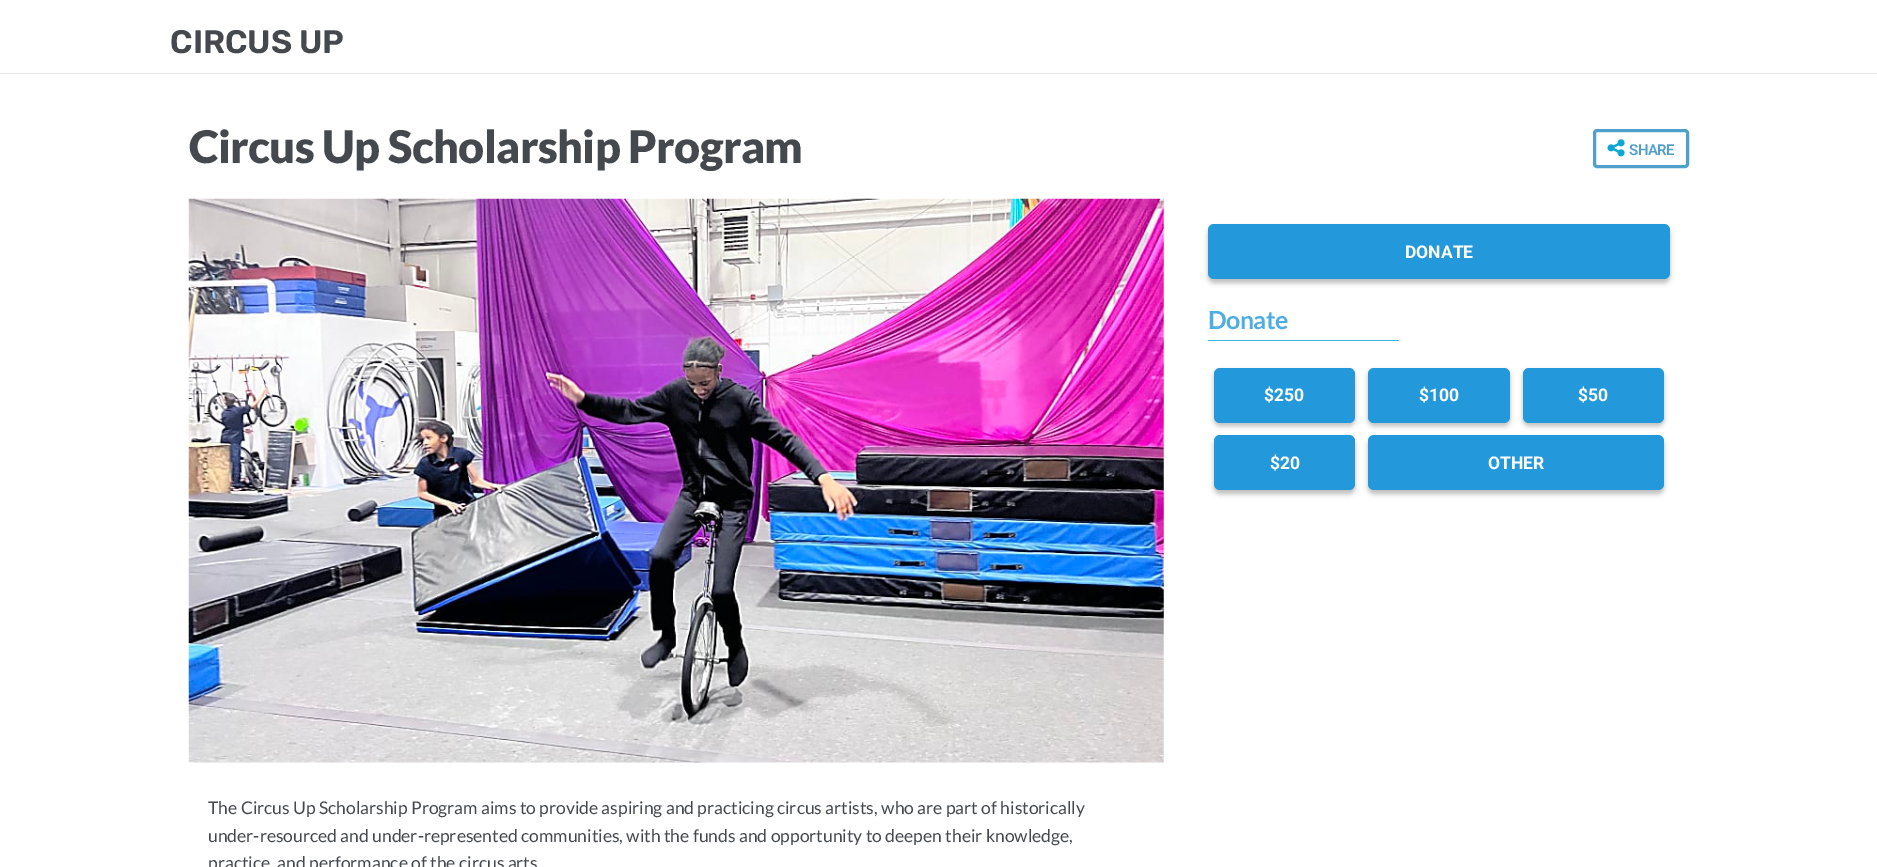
%!PS
<< /PageSize [1877 867] /PageUsesTransparency true >> setpagedevice
/mt/moveto load def
/fl/fill load def
/st/stroke load def
/lw/setlinewidth load def
/co { dup -16 bitshift 255 div exch dup -8 bitshift 255 and 255 div exch 255 and 255 div setrgbcolor } def
/fn { [ exch dup neg 0 0 3 -1 roll 0 0 ] selectfont } def
/tx { co fn moveto show } def
/bx { co rectfill } def
/al { dup .setfillconstantalpha .setstrokeconstantalpha } def
/rr { 5 dict begin { /r /h /w /y /x } { exch def } forall
  x r add y moveto x w add y 2 copy h add r arct x w add y h add x 1 index r arct
  x y h add x y r arct x y 2 copy exch w add exch r arct closepath end } def
/sh { 12 dict begin { /a /b /q /h /w /y /x } { exch def } forall gsave /was 0 def
  9 -2 -9 { dup b mul 4 div /e exch def 1 sub .425 mul 2.718 exch exp 1 add a .99 .min exch div /now exch def
    1 1 now sub 1 was sub div sub al /was now def
    w h .min e 2 mul add 0 gt { x e sub y e sub w e 2 mul add h e 2 mul add
      q e add b .6 mul add w h .min 2 div e add .min 0 .max rr fill } if } for grestore end } def
/im { 5 dict begin { /h /w /y /x /name } { exch def } forall
  gsave x y translate w h scale
  w h 8 [w 0 0 h 0 0] name (r) file false 3 colorimage grestore end } def
0 .pushpdf14devicefilter
0 867 translate 1 -1 scale
4 setmiterlimit
0 0 1877 867 16#FFFFFF bx
0 73 1877 1 16#E7E7E7 bx
16#4FA0CC co
3 lw
1594.5 130.5 93 36 2.5 rr st
(media/1.raw) 1607 139 18 18 im
16#000000 co
1208 228 462 55 6 2.5 .25 sh
16#2398DB co
1208 224 462 55 6 rr fl
1208 340 191 1 16#3CB8DD bx
16#000000 co
1214 371 141 55 6 2.5 .25 sh
16#2398DB co
1214 368 141 55 6 rr fl
16#000000 co
1368 371 142 55 6 2.5 .25 sh
16#2398DB co
1368 368 142 55 6 rr fl
16#000000 co
1523 371 141 55 6 2.5 .25 sh
16#2398DB co
1523 368 141 55 6 rr fl
16#000000 co
1214 439 141 55 6 2.5 .25 sh
16#2398DB co
1214 435 141 55 6 rr fl
16#000000 co
1368 439 296 55 6 2.5 .25 sh
16#2398DB co
1368 435 296 55 6 rr fl
(media/2.raw) 188 198 976 565 im
(CIRCUS UP) 170 53 /Rubik-SemiBold 32.5 16#45494E tx
/Lato-Black 45 fn
189 163 mt -.6 0 (Circus Up Scholarship Program) ashow
/Roboto-SemiBold 15 fn
16#4FA0CC co
1629 155 mt -.6 0 (SHARE) ashow
(DONATE) 1405 258 /Roboto-Bold 17.5 16#FFFFFF tx
/Lato-Bold 25 fn
16#4FADE2 co
1208 329 mt -.6 0 (Donate) ashow
($250) 1264 401 /Roboto-Bold 17.5 16#FFFFFF tx
($100) 1419 401 /Roboto-Bold 17.5 16#FFFFFF tx
($50) 1578 401 /Roboto-Bold 17.5 16#FFFFFF tx
($20) 1270 469 /Roboto-Bold 17.5 16#FFFFFF tx
(OTHER) 1488 469 /Roboto-Bold 17.5 16#FFFFFF tx
(The Circus Up Scholarship Program aims to provide aspiring and practicing circus artists, who are part of historically) 208 814 /Lato-Regular 17.5 16#45494E tx
(under-resourced and under-represented communities, with the funds and opportunity to deepen their knowledge,) 208 842 /Lato-Regular 17.5 16#45494E tx
(practice, and performance of the circus arts) 208 869 /Lato-Regular 17.5 16#45494E tx
.poppdf14devicefilter showpage
